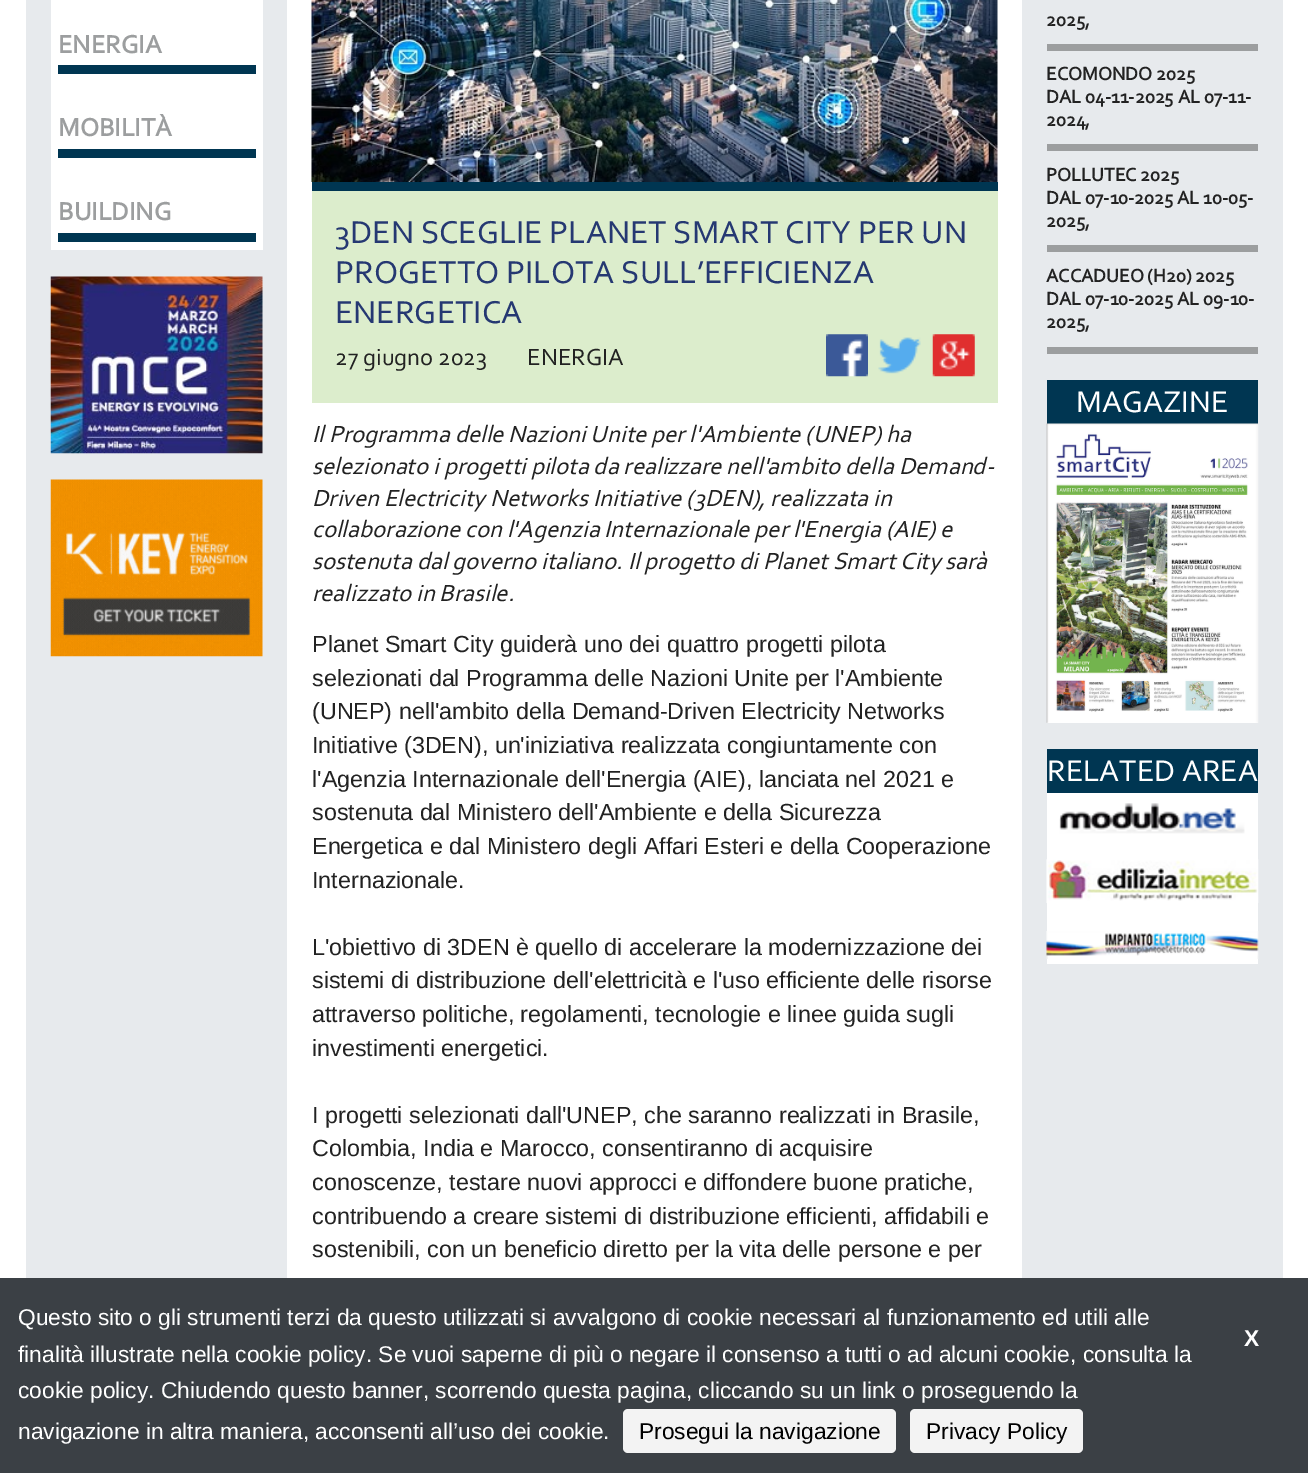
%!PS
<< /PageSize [1308 1473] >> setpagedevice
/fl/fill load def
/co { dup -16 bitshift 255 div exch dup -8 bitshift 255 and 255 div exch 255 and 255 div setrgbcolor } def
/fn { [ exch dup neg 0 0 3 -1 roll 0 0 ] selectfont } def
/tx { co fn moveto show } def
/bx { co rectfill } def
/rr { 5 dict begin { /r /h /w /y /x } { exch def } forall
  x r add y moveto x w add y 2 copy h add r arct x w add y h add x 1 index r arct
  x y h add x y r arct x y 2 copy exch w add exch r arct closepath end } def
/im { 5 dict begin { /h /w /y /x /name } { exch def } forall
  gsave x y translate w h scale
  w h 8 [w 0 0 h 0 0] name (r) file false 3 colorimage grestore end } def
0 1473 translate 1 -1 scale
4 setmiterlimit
0 0 1308 1473 16#FFFFFF bx
26 0 1257 1278 16#E7EAED bx
51 0 212 250 16#FFFFFF bx
58 65 198 9 16#003652 bx
58 149 198 9 16#003652 bx
58 233 198 9 16#003652 bx
(media/1.raw) 50 276 213 178 im
(media/2.raw) 50 479 213 178 im
1047 44 211 7 16#9C9E9F bx
1047 144 211 7 16#9C9E9F bx
1047 245 211 7 16#9C9E9F bx
1047 347 211 7 16#9C9E9F bx
1047 380 211 44 16#003652 bx
(media/3.raw) 1046 423 213 300 im
1047 749 211 44 16#003652 bx
1047 793 211 171 16#FFFFFF bx
(media/4.raw) 1059 803 186 31 im
(media/5.raw) 1046 859 213 44 im
(media/6.raw) 1046 931 213 28 im
287 0 735 1278 16#FFFFFF bx
(media/7.raw) 311 0 687 182 im
312 182 686 9 16#003652 bx
312 191 686 212 16#DCEDCC bx
(media/8.raw) 826 334 42 43 im
(media/9.raw) 878 337 43 37 im
(media/10.raw) 932 334 43 43 im
0 1278 1308 195 16#3B4045 bx
16#F3F3F3 co
623 1409 273 44 5 rr fl
910 1409 173 44 5 rr fl
(ENERGIA) 58 53 /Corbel-Bold 26.25 16#9C9E9F tx
(MOBILITÀ) 58 136 /Corbel-Bold 26.25 16#9C9E9F tx
(BUILDING) 58 220 /Corbel-Bold 26.25 16#9C9E9F tx
(2025,) 1046 26 /Corbel-Bold 19.25 16#222222 tx
(ECOMONDO 2025) 1046 80 /Corbel-Bold 19.25 16#222222 tx
(DAL 04-11-2025 AL 07-11-) 1046 103 /Corbel-Bold 19.25 16#222222 tx
(2024,) 1046 126 /Corbel-Bold 19.25 16#222222 tx
(POLLUTEC 2025) 1046 181 /Corbel-Bold 19.25 16#222222 tx
(DAL 07-10-2025 AL 10-05-) 1046 204 /Corbel-Bold 19.25 16#222222 tx
(2025,) 1046 227 /Corbel-Bold 19.25 16#222222 tx
(ACCADUEO \(H20\) 2025) 1046 282 /Corbel-Bold 19.25 16#222222 tx
(DAL 07-10-2025 AL 09-10-) 1046 305 /Corbel-Bold 19.25 16#222222 tx
(2025,) 1046 328 /Corbel-Bold 19.25 16#222222 tx
(MAGAZINE) 1076 412 /Corbel-Regular 31.5 16#FFFFFF tx
(RELATED AREA) 1047 781 /Corbel-Regular 31.5 16#FFFFFF tx
(3DEN SCEGLIE PLANET SMART CITY PER UN) 335 243 /Corbel-Regular 33.25 16#253872 tx
(PROGETTO PILOTA SULL’EFFICIENZA) 335 283 /Corbel-Regular 33.25 16#253872 tx
(ENERGETICA) 335 323 /Corbel-Regular 33.25 16#253872 tx
(27 giugno 2023) 335 365 /Corbel-Regular 24.5 16#222222 tx
(ENERGIA) 527 365 /Corbel-Regular 24.5 16#222222 tx
(Il Programma delle Nazioni Unite per l'Ambiente \(UNEP\) ha) 312 442 /Corbel-Italic 24.5 16#222222 tx
(selezionato i progetti pilota da realizzare nell'ambito della Demand-) 312 474 /Corbel-Italic 24.5 16#222222 tx
(Driven Electricity Networks Initiative \(3DEN\), realizzata in) 312 506 /Corbel-Italic 24.5 16#222222 tx
(collaborazione con l'Agenzia Internazionale per l'Energia \(AIE\) e) 312 537 /Corbel-Italic 24.5 16#222222 tx
(sostenuta dal governo italiano. Il progetto di Planet Smart City sarà) 312 569 /Corbel-Italic 24.5 16#222222 tx
(realizzato in Brasile.) 312 601 /Corbel-Italic 24.5 16#222222 tx
(Planet Smart City guiderà uno dei quattro progetti pilota) 312 652 /LiberationSans-Regular 23.3 16#222222 tx
(selezionati dal Programma delle Nazioni Unite per l'Ambiente) 312 686 /LiberationSans-Regular 23.3 16#222222 tx
(\(UNEP\) nell'ambito della Demand-Driven Electricity Networks) 312 719 /LiberationSans-Regular 23.3 16#222222 tx
(Initiative \(3DEN\), un'iniziativa realizzata congiuntamente con) 312 753 /LiberationSans-Regular 23.3 16#222222 tx
(l'Agenzia Internazionale dell'Energia \(AIE\), lanciata nel 2021 e) 312 787 /LiberationSans-Regular 23.3 16#222222 tx
(sostenuta dal Ministero dell'Ambiente e della Sicurezza) 312 820 /LiberationSans-Regular 23.3 16#222222 tx
(Energetica e dal Ministero degli Affari Esteri e della Cooperazione) 312 854 /LiberationSans-Regular 23.3 16#222222 tx
(Internazionale.) 312 888 /LiberationSans-Regular 23.3 16#222222 tx
(L'obiettivo di 3DEN è quello di accelerare la modernizzazione dei) 312 955 /LiberationSans-Regular 23.3 16#222222 tx
(sistemi di distribuzione dell'elettricità e l'uso efficiente delle risorse) 312 988 /LiberationSans-Regular 23.3 16#222222 tx
(attraverso politiche, regolamenti, tecnologie e linee guida sugli) 312 1022 /LiberationSans-Regular 23.3 16#222222 tx
(investimenti energetici.) 312 1056 /LiberationSans-Regular 23.3 16#222222 tx
(I progetti selezionati dall'UNEP, che saranno realizzati in Brasile,) 312 1123 /LiberationSans-Regular 23.3 16#222222 tx
(Colombia, India e Marocco, consentiranno di acquisire) 312 1156 /LiberationSans-Regular 23.3 16#222222 tx
(conoscenze, testare nuovi approcci e diffondere buone pratiche,) 312 1190 /LiberationSans-Regular 23.3 16#222222 tx
(contribuendo a creare sistemi di distribuzione efficienti, affidabili e) 312 1224 /LiberationSans-Regular 23.3 16#222222 tx
(sostenibili, con un beneficio diretto per la vita delle persone e per) 312 1257 /LiberationSans-Regular 23.3 16#222222 tx
(Questo sito o gli strumenti terzi da questo utilizzati si avvalgono di cookie necessari al funzionamento ed utili alle) 18 1325 /LiberationSans-Regular 22.75 16#FFFFFF tx
(X) 1244 1346 /LiberationSans-Bold 22.75 16#FFFFFF tx
(finalità illustrate nella cookie policy. Se vuoi saperne di più o negare il consenso a tutti o ad alcuni cookie, consulta la) 18 1362 /LiberationSans-Regular 22.75 16#FFFFFF tx
(cookie policy. Chiudendo questo banner, scorrendo questa pagina, cliccando su un link o proseguendo la) 18 1398 /LiberationSans-Regular 22.75 16#FFFFFF tx
(navigazione in altra maniera, acconsenti all’uso dei cookie.) 18 1439 /LiberationSans-Regular 22.75 16#FFFFFF tx
(Prosegui la navigazione) 639 1439 /LiberationSans-Regular 22.75 16#000000 tx
(Privacy Policy) 926 1439 /LiberationSans-Regular 22.75 16#000000 tx
showpage
